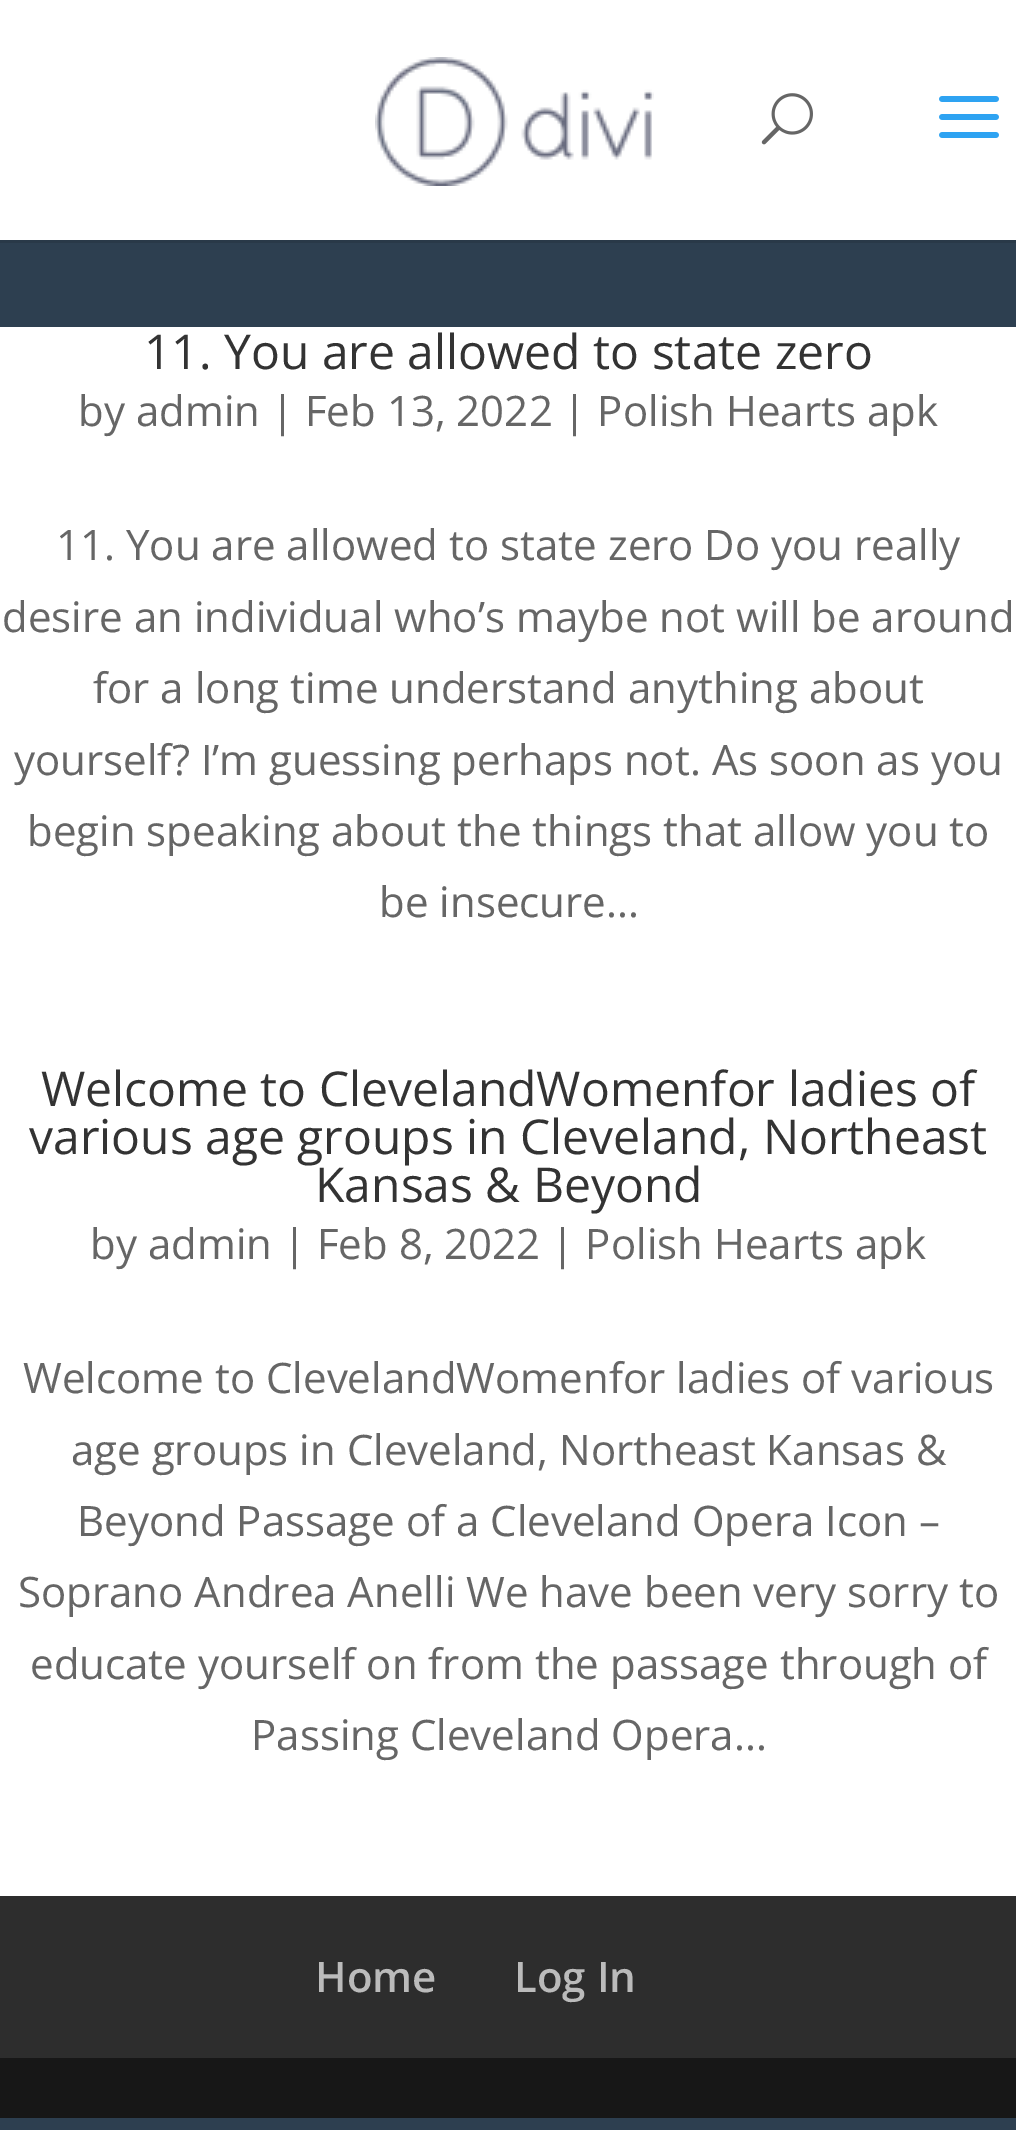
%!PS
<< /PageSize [1016 2130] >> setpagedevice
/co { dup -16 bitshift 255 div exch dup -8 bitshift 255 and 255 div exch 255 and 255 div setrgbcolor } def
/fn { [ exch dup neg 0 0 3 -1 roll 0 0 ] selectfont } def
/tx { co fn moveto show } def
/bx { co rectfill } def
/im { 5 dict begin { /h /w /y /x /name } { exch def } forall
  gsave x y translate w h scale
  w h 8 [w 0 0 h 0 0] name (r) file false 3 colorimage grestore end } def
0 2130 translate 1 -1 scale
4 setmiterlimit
0 0 1016 2130 16#2D3F50 bx
0 240 1016 3 16#293948 bx
0 0 1016 240 16#FFFFFF bx
(media/1.raw) 375 57 279 129 im
(media/2.raw) 761 93 52 52 im
(media/3.raw) 939 96 60 42 im
0 327 1016 1569 16#FFFFFF bx
0 1896 1016 162 16#2D2D2D bx
0 2058 1016 60 16#171717 bx
(11. You are allowed to state zero) 144 369 /OpenSans-Regular 48 16#333333 tx
(by admin | Feb 13, 2022 | Polish Hearts apk) 78 426 /OpenSans-Regular 42 16#666666 tx
(11. You are allowed to state zero Do you really) 56 560 /OpenSans-Regular 42 16#666666 tx
(desire an individual who’s maybe not will be around) 2 632 /OpenSans-Regular 42 16#666666 tx
(for a long time understand anything about) 93 703 /OpenSans-Regular 42 16#666666 tx
(yourself? I’m guessing perhaps not. As soon as you) 14 775 /OpenSans-Regular 42 16#666666 tx
(begin speaking about the things that allow you to) 27 846 /OpenSans-Regular 42 16#666666 tx
(be insecure...) 379 917 /OpenSans-Regular 42 16#666666 tx
(Welcome to ClevelandWomenfor ladies of) 41 1106 /OpenSans-Regular 48 16#333333 tx
(various age groups in Cleveland, Northeast) 29 1154 /OpenSans-Regular 48 16#333333 tx
(Kansas & Beyond) 315 1202 /OpenSans-Regular 48 16#333333 tx
(by admin | Feb 8, 2022 | Polish Hearts apk) 90 1259 /OpenSans-Regular 42 16#666666 tx
(Welcome to ClevelandWomenfor ladies of various) 23 1393 /OpenSans-Regular 42 16#666666 tx
(age groups in Cleveland, Northeast Kansas &) 71 1465 /OpenSans-Regular 42 16#666666 tx
(Beyond Passage of a Cleveland Opera Icon –) 77 1536 /OpenSans-Regular 42 16#666666 tx
(Soprano Andrea Anelli We have been very sorry to) 18 1607 /OpenSans-Regular 42 16#666666 tx
(educate yourself on from the passage through of) 30 1679 /OpenSans-Regular 42 16#666666 tx
(Passing Cleveland Opera...) 251 1750 /OpenSans-Regular 42 16#666666 tx
(Home) 315 1992 /OpenSans-SemiBold 42 16#BBBBBB tx
(Log In) 514 1992 /OpenSans-SemiBold 42 16#BBBBBB tx
showpage
